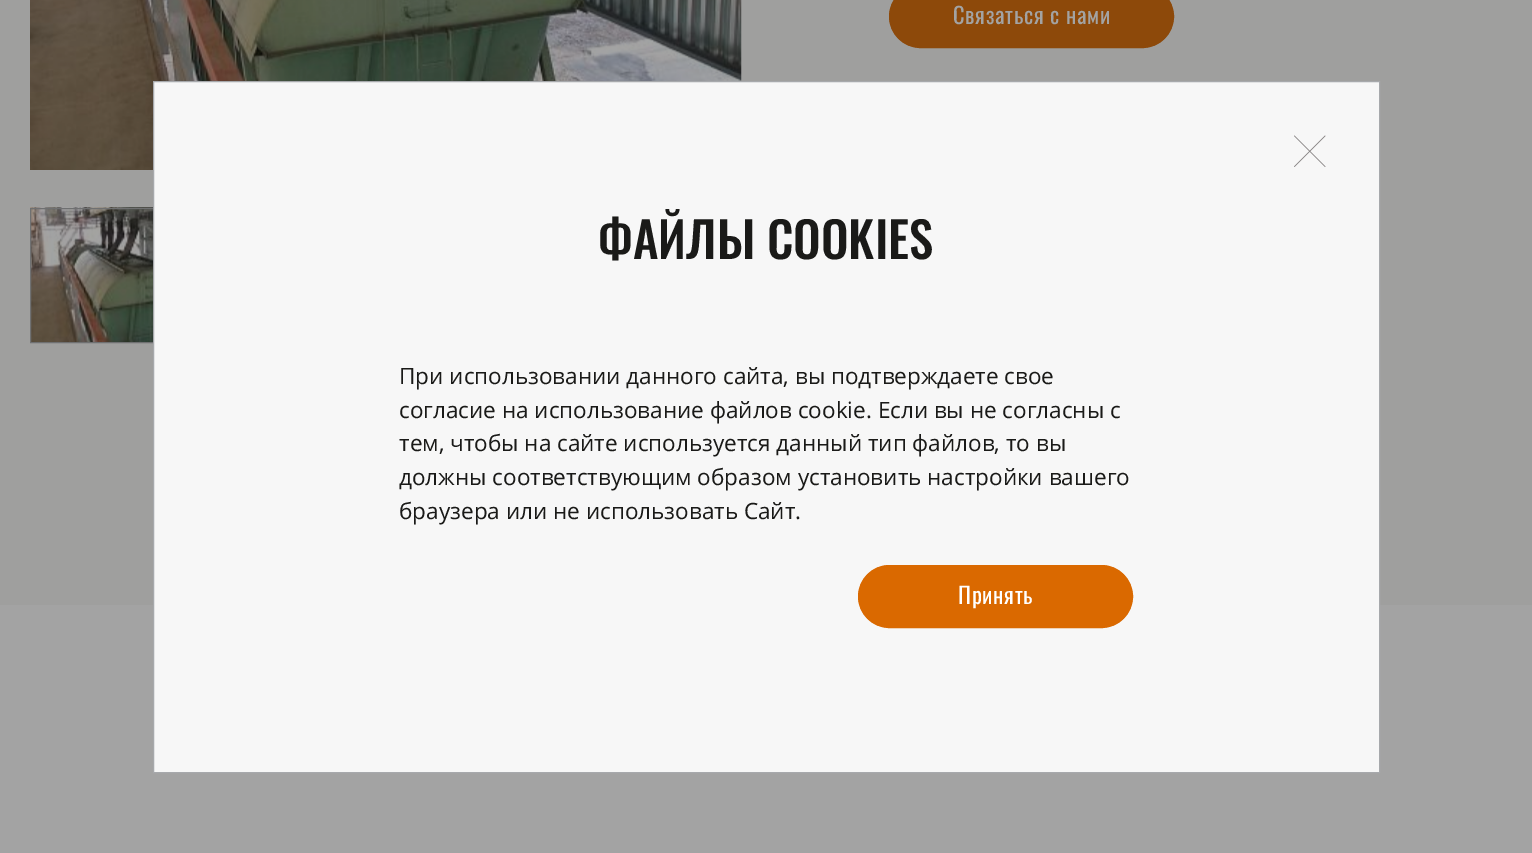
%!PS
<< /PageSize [1532 853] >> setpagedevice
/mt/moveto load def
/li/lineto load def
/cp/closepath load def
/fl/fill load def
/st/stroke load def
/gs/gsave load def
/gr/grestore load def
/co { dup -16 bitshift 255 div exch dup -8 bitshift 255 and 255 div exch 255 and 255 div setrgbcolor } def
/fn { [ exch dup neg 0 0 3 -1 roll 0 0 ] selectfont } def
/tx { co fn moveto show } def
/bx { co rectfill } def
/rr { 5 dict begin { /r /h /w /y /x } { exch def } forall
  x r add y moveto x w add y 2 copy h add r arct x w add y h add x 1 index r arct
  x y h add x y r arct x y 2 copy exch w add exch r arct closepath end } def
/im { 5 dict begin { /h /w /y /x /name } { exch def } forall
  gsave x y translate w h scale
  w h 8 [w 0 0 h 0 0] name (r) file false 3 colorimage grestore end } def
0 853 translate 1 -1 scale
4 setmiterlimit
0 0 1532 853 16#A3A3A3 bx
0 0 1532 605 16#9F9F9E bx
(media/1.raw) 30 0 712 170 im
(media/2.raw) 30 207 123 135 im
16#6F7071 co
30.5 208.5 219 134 rectstroke
16#8D490A co
889.5 -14.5 284 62 31 rr gs fl gr
st
16#F7F7F7 co
153.5 81.5 mt 1379.5 81.5 li 1379.5 772.5 li 153.5 772.5 li cp gs fl gr
16#A7A9AC co
st
16#858282 co
1294.5 135.5 mt 1325.5 166.5 li 1325 167 li 1294 136 li cp fl
1294 166.5 mt 1325 135.5 li 1325.5 136 li 1294.5 167 li cp fl
16#DA6900 co
858.5 565.5 274 62 31 rr gs fl gr
st
/Oswald-Regular 22.5 fn
16#A3A3A3 co
953 24 mt .7 0 (Связаться с нами) ashow
(ФАЙЛЫ COOKIES) 598 259 /Oswald-Medium 49 16#1A1A18 tx
(При использовании данного сайта, вы подтверждаете свое) 399 384 /OpenSans-Regular 22.5 16#1A1A18 tx
(согласие на использование файлов cookie. Если вы не согласны с) 399 418 /OpenSans-Regular 22.5 16#1A1A18 tx
(тем, чтобы на сайте используется данный тип файлов, то вы) 399 451 /OpenSans-Regular 22.5 16#1A1A18 tx
(должны соответствующим образом установить настройки вашего) 399 485 /OpenSans-Regular 22.5 16#1A1A18 tx
(браузера или не использовать Сайт.) 399 519 /OpenSans-Regular 22.5 16#1A1A18 tx
/Oswald-Regular 22.5 fn
16#FFFFFF co
958 604 mt .7 0 (Принять) ashow
showpage
